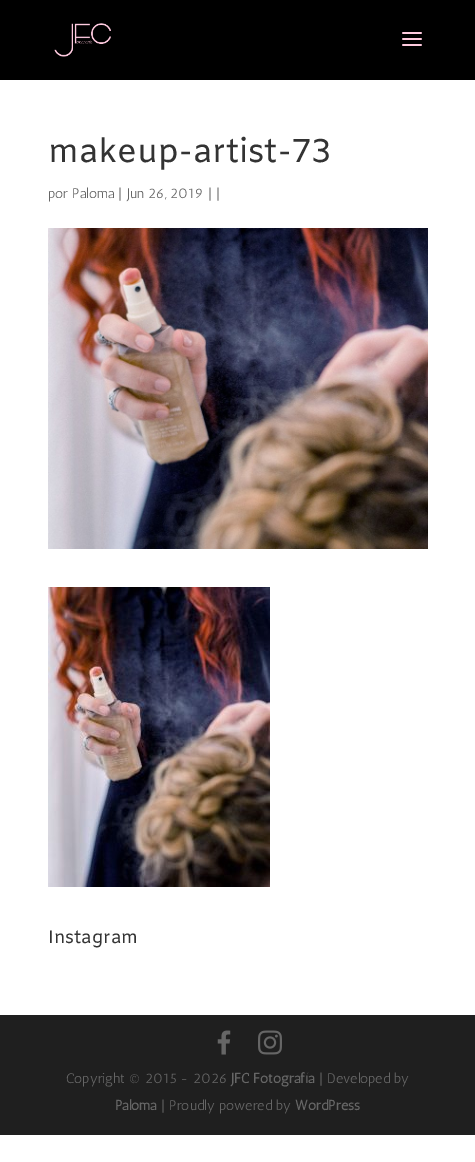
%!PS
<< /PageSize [475 1162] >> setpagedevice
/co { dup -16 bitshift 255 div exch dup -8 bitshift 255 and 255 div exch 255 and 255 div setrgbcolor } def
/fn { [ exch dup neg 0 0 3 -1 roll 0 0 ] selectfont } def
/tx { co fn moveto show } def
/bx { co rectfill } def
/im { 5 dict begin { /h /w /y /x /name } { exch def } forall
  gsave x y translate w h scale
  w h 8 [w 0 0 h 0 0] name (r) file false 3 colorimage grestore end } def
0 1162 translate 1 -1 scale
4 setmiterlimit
0 0 475 1162 16#FFFFFF bx
0 0 475 80 16#000000 bx
(media/1.raw) 54 23 57 34 im
(media/2.raw) 402 32 20 14 im
(media/3.raw) 48 228 380 321 im
(media/4.raw) 48 587 222 300 im
0 1015 475 120 16#1F1F1F bx
(media/5.raw) 217 1030 14 25 im
(media/6.raw) 258 1030 24 25 im
(makeup-artist-73) 48 162 /Amiko-Regular 33 16#333333 tx
(por Paloma | Jun 26, 2019 | |) 48 198 /Antic-Regular 14 16#666666 tx
(Instagram) 48 943 /Amiko-Regular 18 16#333333 tx
(Copyright © 2015 - 2026) 66 1083 /Antic-Regular 14 16#666666 tx
(JFC Fotografía) 231 1083 /Antic-Bold 14 16#666666 tx
(| Developed by) 319 1083 /Antic-Regular 14 16#666666 tx
(Paloma) 115 1110 /Antic-Bold 14 16#666666 tx
(| Proudly powered by) 161 1110 /Antic-Regular 14 16#666666 tx
(WordPress) 295 1110 /Antic-Bold 14 16#666666 tx
showpage
